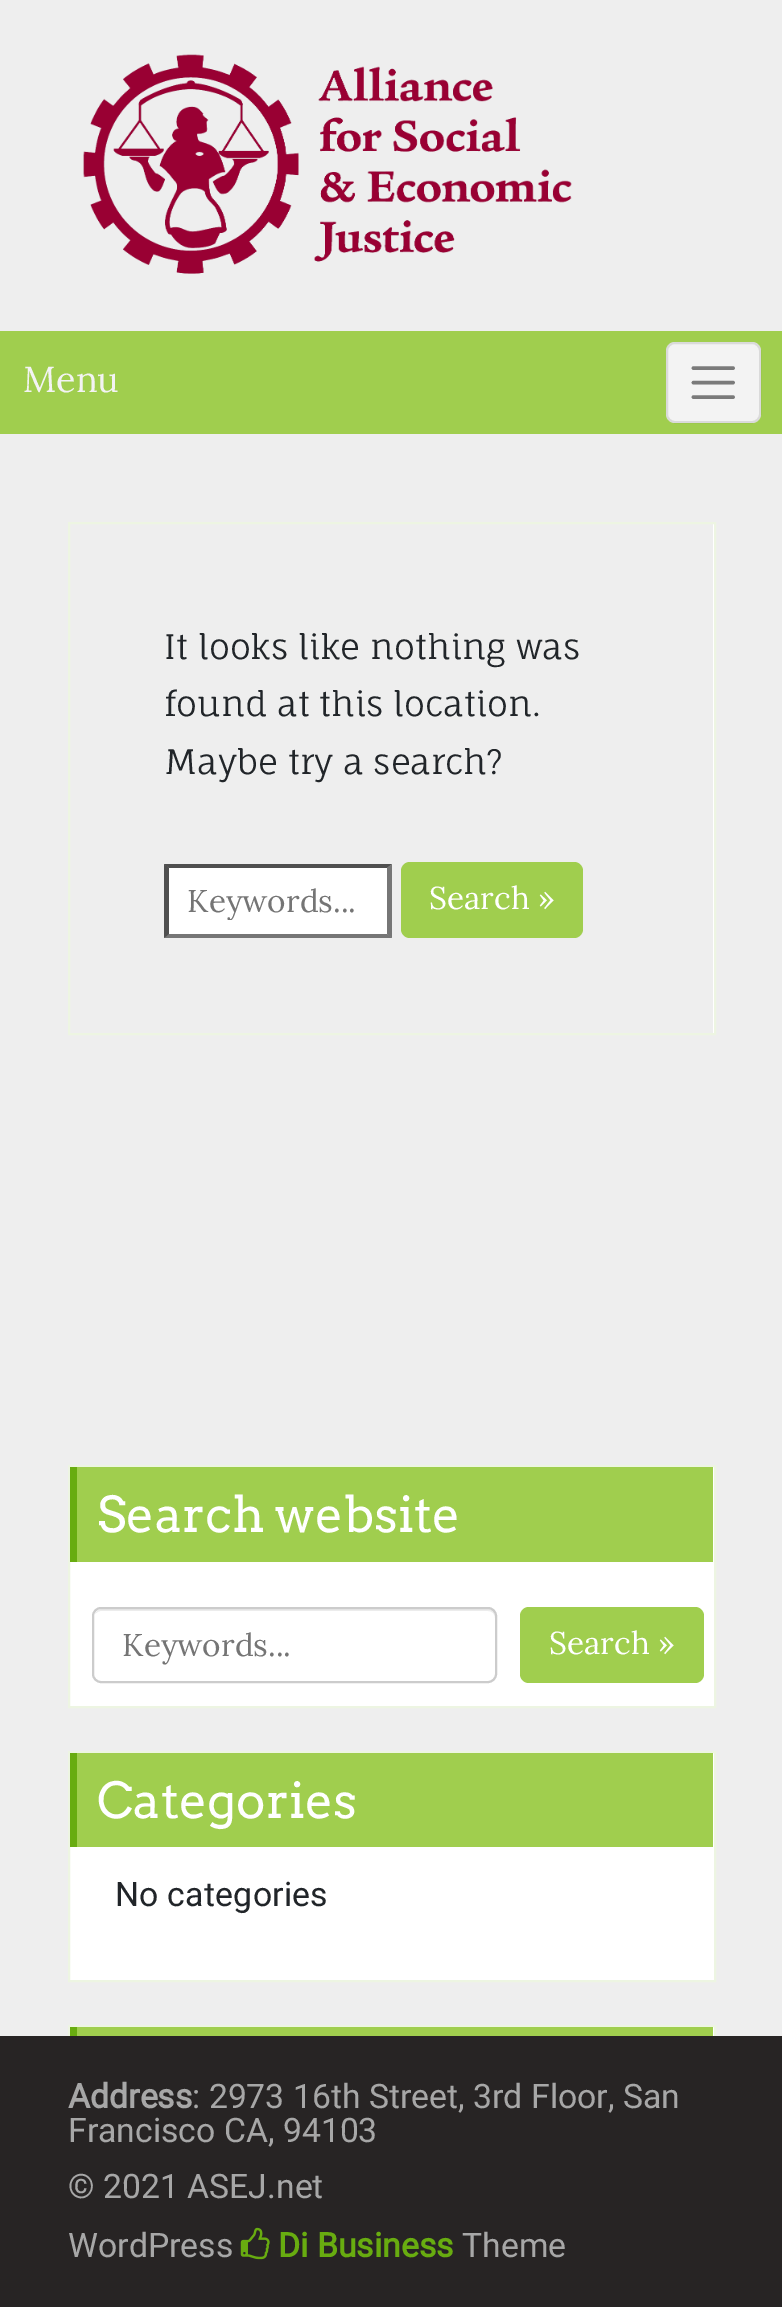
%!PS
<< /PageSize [782 2307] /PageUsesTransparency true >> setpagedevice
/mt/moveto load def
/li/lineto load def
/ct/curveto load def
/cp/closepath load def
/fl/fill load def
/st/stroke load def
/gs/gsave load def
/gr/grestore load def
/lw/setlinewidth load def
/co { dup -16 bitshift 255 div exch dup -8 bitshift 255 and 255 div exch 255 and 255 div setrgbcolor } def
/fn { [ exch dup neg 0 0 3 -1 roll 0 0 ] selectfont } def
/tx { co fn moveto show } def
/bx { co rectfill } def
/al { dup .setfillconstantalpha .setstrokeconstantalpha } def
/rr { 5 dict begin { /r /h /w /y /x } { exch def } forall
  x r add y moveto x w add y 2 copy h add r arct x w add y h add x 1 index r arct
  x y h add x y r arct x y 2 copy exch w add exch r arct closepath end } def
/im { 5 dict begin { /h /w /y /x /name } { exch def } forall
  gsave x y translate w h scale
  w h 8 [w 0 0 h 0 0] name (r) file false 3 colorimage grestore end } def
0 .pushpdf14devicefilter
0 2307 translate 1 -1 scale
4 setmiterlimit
0 0 782 2307 16#EEEEEE bx
(media/1.raw) 83 54 489 220 im
0 331 782 103 16#A0CE4E bx
16#F3F3F3 co
666 342 95 81 9 rr fl
0.1 al
16#000000 co
2 lw
667 343 93 79 8 rr st
1 al
16#7A7A7A co
3.6 lw
1 setlinecap
693.5 368 mt 733 368 li 693.5 382.5 mt 733 382.5 li 693.5 397 mt 733 397 li st
713 524 1 509 16#FFFFFF bx
16#EDF5E2 co
2 lw
0 setlinecap
69 523 646 511 rectstroke
164 864 228 74 16#FFFFFF bx
16#4F4F4F co
164 864 mt 392 864 li 387 868 li 169 868 li cp fl
16#767676 co
392 864 mt 392 938 li 387 934 li 387 868 li cp fl
392 938 mt 164 938 li 169 934 li 387 934 li cp fl
16#4F4F4F co
164 938 mt 164 864 li 169 868 li 169 934 li cp fl
16#A0CE4E co
401 862 182 76 9 rr fl
16#FFFFFF co
69 1466 mt 715 1466 li 715 1707 li 69 1707 li cp gs fl gr
16#EDF5E2 co
st
77 1467 636 95 16#A0CE4E bx
70 1467 7 95 16#68AC10 bx
16#ECECEC co
101 1611 mt 488 1611 li 492 1611 495 1614 495 1618 ct 495 1614 493 1609 488 1609 ct 101 1609 li 98 1610 96 1612 95 1614 ct 97 1612 99 1611 101 1611 ct cp fl
16#CCCCCC co
93 1608 403 74 8 rr st
16#A0CE4E co
520 1607 184 76 9 rr fl
16#FFFFFF co
69 1752 mt 715 1752 li 715 1981 li 69 1981 li cp gs fl gr
16#EDF5E2 co
st
77 1753 636 94 16#A0CE4E bx
70 1753 7 94 16#68AC10 bx
713 2027 1 9 16#FFFFFF bx
16#EDF5E2 co
69 2026 646 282 rectstroke
77 2027 636 9 16#A0CE4E bx
70 2027 7 9 16#68AC10 bx
0 2036 782 271 16#272424 bx
(media/2.raw) 240 2227 30 33 im
(Menu) 23 392 /Lora-Regular 36 16#F3F3F3 tx
(It looks like nothing was) 164 659 /FaunaOne-Regular 33.75 16#212529 tx
(found at this location.) 164 716 /FaunaOne-Regular 33.75 16#212529 tx
(Maybe try a search?) 164 774 /FaunaOne-Regular 33.75 16#212529 tx
gs
187 880 173 40 rectclip
(Keywords...) 187 912 /Lora-Regular 31.5 16#757575 tx
gr
(Search ») 429 909 /Lora-Regular 31.5 16#FFFFFF tx
(Search website) 97 1532 /Arvo-Regular 49.5 16#FFFFFF tx
(Keywords...) 122 1656 /Lora-Regular 31.5 16#757575 tx
(Search ») 549 1654 /Lora-Regular 31.5 16#FFFFFF tx
(Categories) 97 1818 /Arvo-Regular 49.5 16#FFFFFF tx
/Roboto-Regular 33.75 fn
16#212529 co
115 1906 mt .25 0 (No categories) ashow
(Address) 68 2108 /Roboto-Bold 33.75 16#A7A7A7 tx
(: 2973 16th Street, 3rd Floor, San) 192 2108 /Roboto-Regular 33.75 16#A7A7A7 tx
(Francisco CA, 94103) 68 2142 /Roboto-Regular 33.75 16#A7A7A7 tx
(© 2021 ASEJ.net) 68 2198 /Roboto-Regular 33.75 16#A7A7A7 tx
(WordPress) 68 2257 /Roboto-Regular 33.75 16#A7A7A7 tx
(Di Business) 278 2257 /Roboto-Bold 33.75 16#68AC10 tx
(Theme) 462 2257 /Roboto-Regular 33.75 16#A7A7A7 tx
.poppdf14devicefilter showpage
